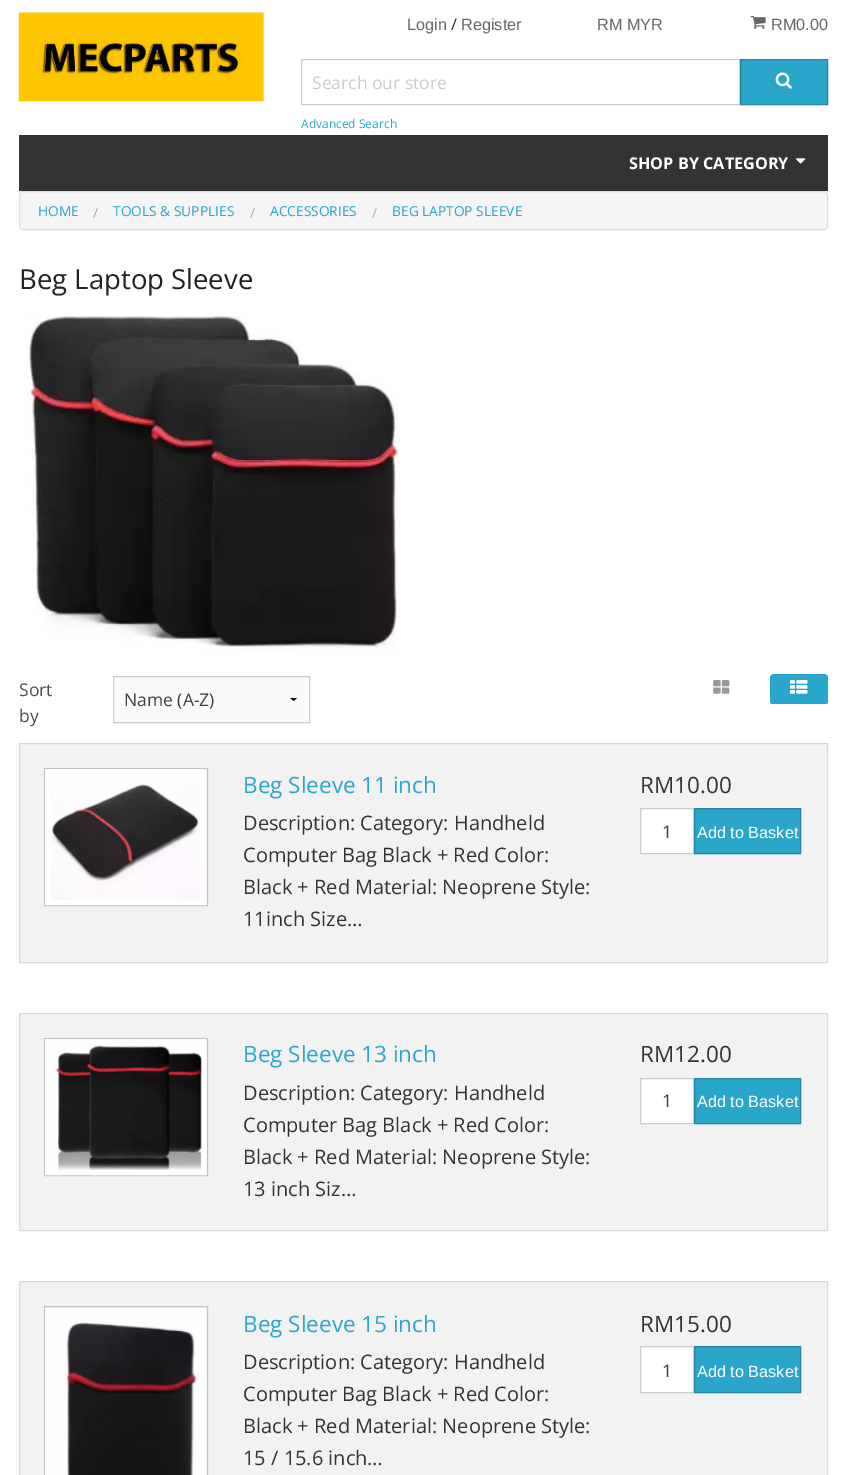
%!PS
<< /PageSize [846 1475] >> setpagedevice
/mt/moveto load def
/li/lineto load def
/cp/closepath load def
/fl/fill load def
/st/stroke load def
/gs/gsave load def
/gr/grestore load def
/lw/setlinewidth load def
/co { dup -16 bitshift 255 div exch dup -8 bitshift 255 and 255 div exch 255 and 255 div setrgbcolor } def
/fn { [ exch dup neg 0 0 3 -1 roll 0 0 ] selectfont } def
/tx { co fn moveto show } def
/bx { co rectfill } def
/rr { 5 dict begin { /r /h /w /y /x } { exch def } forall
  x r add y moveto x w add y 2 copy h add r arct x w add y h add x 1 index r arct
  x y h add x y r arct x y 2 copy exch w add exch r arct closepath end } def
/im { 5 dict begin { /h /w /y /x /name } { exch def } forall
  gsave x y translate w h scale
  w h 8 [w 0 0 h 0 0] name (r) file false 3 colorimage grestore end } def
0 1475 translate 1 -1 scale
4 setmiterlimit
0 0 846 1475 16#FFFFFF bx
(media/1.raw) 18 12 246 90 im
(media/2.raw) 750 16 16 13 im
16#CCCCCC co
301.5 59.5 438 45 rectstroke
16#2BA6CB co
740.5 59.5 mt 827.5 59.5 li 827.5 104.5 li 740.5 104.5 li cp gs fl gr
16#2285A2 co
st
(media/3.raw) 775 72 17 17 im
19 135 809 56 16#333333 bx
(media/4.raw) 796 158 10 6 im
16#F5F5F5 co
19.5 191.5 808 38 3.5 rr gs fl gr
16#DDDDDD co
st
(media/5.raw) 25 315 375 335 im
114 677 195 45 16#FAFAFA bx
gs
279 698 30 4 rectclip
16#000000 co
297.5 697.5 mt 293.5 701 li 290 697.5 li cp fl
gr
16#CCCCCC co
113.5 676.5 196 46 rectstroke
(media/6.raw) 713 680 17 14 im
gs
673 671 155 33 rectclip
16#2BA6CB co
770 674 58 31 4 rr fl
gr
(media/7.raw) 790 680 18 14 im
16#F2F2F2 co
19.5 743.5 mt 827.5 743.5 li 827.5 962.5 li 19.5 962.5 li cp gs fl gr
16#D8D8D8 co
st
16#C2C2C2 co
44.5 768.5 163 137 rectstroke
16#FFFFFF co
5 lw
47.5 771.5 156 131 rectstroke
(media/8.raw) 50 774 151 126 im
640.5 808.5 mt 693.5 808.5 li 693.5 853.5 li 640.5 853.5 li cp gs fl gr
16#CCCCCC co
1 lw
st
16#2BA6CB co
694.5 808.5 mt 800.5 808.5 li 800.5 853.5 li 694.5 853.5 li cp gs fl gr
16#2285A2 co
st
16#F2F2F2 co
19.5 1013.5 mt 827.5 1013.5 li 827.5 1230.5 li 19.5 1230.5 li cp gs fl gr
16#D8D8D8 co
st
16#C2C2C2 co
44.5 1038.5 163 137 rectstroke
16#FFFFFF co
5 lw
47.5 1041.5 156 131 rectstroke
(media/9.raw) 50 1044 152 126 im
640.5 1078.5 mt 693.5 1078.5 li 693.5 1123.5 li 640.5 1123.5 li cp gs fl gr
16#CCCCCC co
1 lw
st
16#2BA6CB co
694.5 1078.5 mt 800.5 1078.5 li 800.5 1123.5 li 694.5 1123.5 li cp gs fl gr
16#2285A2 co
st
16#F2F2F2 co
19.5 1281.5 mt 827.5 1281.5 li 827.5 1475.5 li 19.5 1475.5 li cp gs fl gr
16#D8D8D8 co
st
16#C2C2C2 co
44.5 1306.5 163 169 rectstroke
16#FFFFFF co
5 lw
47.5 1310.5 156 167 rectstroke
(media/10.raw) 50 1313 151 162 im
640.5 1346.5 mt 693.5 1346.5 li 693.5 1392.5 li 640.5 1392.5 li cp gs fl gr
16#CCCCCC co
1 lw
st
16#2BA6CB co
694.5 1346.5 mt 800.5 1346.5 li 800.5 1392.5 li 694.5 1392.5 li cp gs fl gr
16#2285A2 co
st
(Login) 407 30 /LiberationSans-Regular 16.25 16#666666 tx
(/) 451 30 /OpenSans-Regular 16.25 16#222222 tx
(Register) 461 30 /LiberationSans-Regular 16.25 16#666666 tx
(RM MYR) 597 30 /LiberationSans-Regular 16.25 16#666666 tx
(RM0.00) 771 30 /LiberationSans-Regular 16.25 16#666666 tx
(Search our store) 312 89 /OpenSans-Regular 17.5 16#CCCCCC tx
(Advanced Search) 301 128 /OpenSans-Regular 12 16#2BA6CB tx
(SHOP BY CATEGORY) 629 169 /OpenSans-Bold 16.25 16#FFFFFF tx
(HOME) 38 216 /OpenSans-Regular 13.75 16#2BA6CB tx
(/) 93 218 /OpenSans-Regular 13.75 16#AAAAAA tx
(TOOLS & SUPPLIES) 113 216 /OpenSans-Regular 13.75 16#2BA6CB tx
(/) 250 218 /OpenSans-Regular 13.75 16#AAAAAA tx
(ACCESSORIES) 270 216 /OpenSans-Regular 13.75 16#2BA6CB tx
(/) 372 218 /OpenSans-Regular 13.75 16#AAAAAA tx
(BEG LAPTOP SLEEVE) 392 216 /OpenSans-Regular 13.75 16#2BA6CB tx
(Beg Laptop Sleeve) 19 289 /OpenSans-Regular 27.5 16#222222 tx
(Sort) 19 696 /OpenSans-Regular 17.5 16#4D4D4D tx
(by) 19 722 /OpenSans-Regular 17.5 16#4D4D4D tx
(Name \(A-Z\)) 124 706 /OpenSans-Regular 17.5 16#3F3F3F tx
(Beg Sleeve 11 inch) 243 793 /OpenSans-Regular 22.5 16#2BA6CB tx
(Description: Category: Handheld) 243 830 /OpenSans-Regular 20 16#333333 tx
(Computer Bag Black + Red Color:) 243 862 /OpenSans-Regular 20 16#333333 tx
(Black + Red Material: Neoprene Style:) 243 894 /OpenSans-Regular 20 16#333333 tx
(11inch Size…) 243 926 /OpenSans-Regular 20 16#333333 tx
(RM10.00) 640 793 /OpenSans-Regular 22.5 16#333333 tx
(1) 662 838 /OpenSans-Regular 17.5 16#3F3F3F tx
(Add to Basket) 697 838 /LiberationSans-Regular 16.25 16#FFFFFF tx
(Beg Sleeve 13 inch) 243 1062 /OpenSans-Regular 22.5 16#2BA6CB tx
(Description: Category: Handheld) 243 1100 /OpenSans-Regular 20 16#333333 tx
(Computer Bag Black + Red Color:) 243 1132 /OpenSans-Regular 20 16#333333 tx
(Black + Red Material: Neoprene Style:) 243 1164 /OpenSans-Regular 20 16#333333 tx
(13 inch Siz…) 243 1196 /OpenSans-Regular 20 16#333333 tx
(RM12.00) 640 1062 /OpenSans-Regular 22.5 16#333333 tx
(1) 662 1107 /OpenSans-Regular 17.5 16#3F3F3F tx
(Add to Basket) 697 1107 /LiberationSans-Regular 16.25 16#FFFFFF tx
(Beg Sleeve 15 inch) 243 1332 /OpenSans-Regular 22.5 16#2BA6CB tx
(Description: Category: Handheld) 243 1369 /OpenSans-Regular 20 16#333333 tx
(Computer Bag Black + Red Color:) 243 1401 /OpenSans-Regular 20 16#333333 tx
(Black + Red Material: Neoprene Style:) 243 1433 /OpenSans-Regular 20 16#333333 tx
(15 / 15.6 inch…) 243 1465 /OpenSans-Regular 20 16#333333 tx
(RM15.00) 640 1332 /OpenSans-Regular 22.5 16#333333 tx
(1) 662 1377 /OpenSans-Regular 17.5 16#3F3F3F tx
(Add to Basket) 697 1377 /LiberationSans-Regular 16.25 16#FFFFFF tx
showpage
